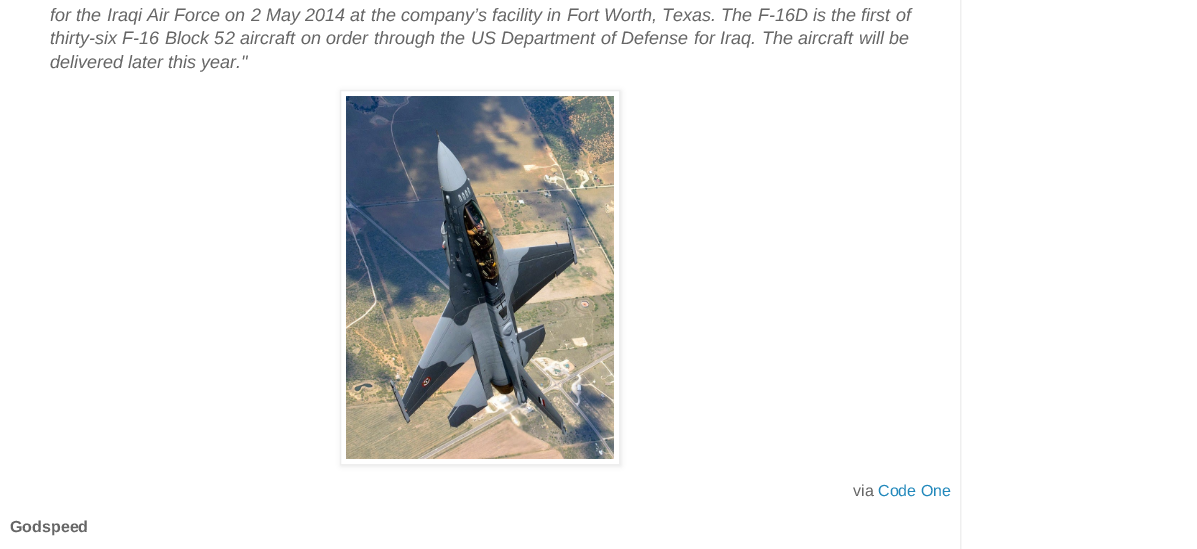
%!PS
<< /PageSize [1197 549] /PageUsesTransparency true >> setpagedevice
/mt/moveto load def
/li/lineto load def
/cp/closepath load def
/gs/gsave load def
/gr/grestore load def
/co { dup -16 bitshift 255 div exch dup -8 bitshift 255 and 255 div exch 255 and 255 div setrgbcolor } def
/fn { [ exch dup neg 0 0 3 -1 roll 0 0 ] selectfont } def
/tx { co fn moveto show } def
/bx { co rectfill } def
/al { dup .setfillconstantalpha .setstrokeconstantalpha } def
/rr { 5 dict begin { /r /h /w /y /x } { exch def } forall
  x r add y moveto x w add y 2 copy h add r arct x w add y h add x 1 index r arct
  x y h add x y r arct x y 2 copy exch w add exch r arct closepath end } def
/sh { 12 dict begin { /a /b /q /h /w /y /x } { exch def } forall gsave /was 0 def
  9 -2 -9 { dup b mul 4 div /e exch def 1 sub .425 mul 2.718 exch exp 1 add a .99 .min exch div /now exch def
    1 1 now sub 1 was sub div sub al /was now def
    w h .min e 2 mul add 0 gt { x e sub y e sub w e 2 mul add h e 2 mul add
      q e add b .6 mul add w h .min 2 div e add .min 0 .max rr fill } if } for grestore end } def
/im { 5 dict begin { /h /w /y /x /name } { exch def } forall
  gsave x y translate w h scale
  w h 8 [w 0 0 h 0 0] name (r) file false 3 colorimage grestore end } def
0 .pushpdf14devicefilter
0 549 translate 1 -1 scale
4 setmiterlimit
0 0 1197 549 16#FFFFFF bx
gs
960 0 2 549 rectclip
16#000000 co
0 -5 960 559 0 1.5 .15 sh
gr
gs
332 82 mt 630 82 li 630 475 li 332 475 li cp 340 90 mt 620 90 li 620 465 li 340 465 li cp eoclip newpath
16#000000 co
341 91 280 375 0 2.5 .1 sh
gr
16#EEEEEE co
340.5 90.5 279 374 rectstroke
(media/1.raw) 346 96 268 363 im
/LiberationSans-Italic 18 fn
16#666666 co
50 21 mt .25 0 32 (for the Iraqi Air Force on 2 May 2014 at the company’s facility in Fort Worth, Texas. The F-16D is the first of) widthshow
50 44 mt .5 0 32 (thirty-six F-16 Block 52 aircraft on order through the US Department of Defense for Iraq. The aircraft will be) widthshow
(delivered later this year.") 50 68 /LiberationSans-Italic 18 16#666666 tx
(via) 853 496 /LiberationSans-Regular 16 16#666666 tx
(Code One) 878 496 /LiberationSans-Regular 16 16#2288BB tx
(Godspeed) 10 532 /LiberationSans-Bold 16 16#666666 tx
.poppdf14devicefilter showpage
